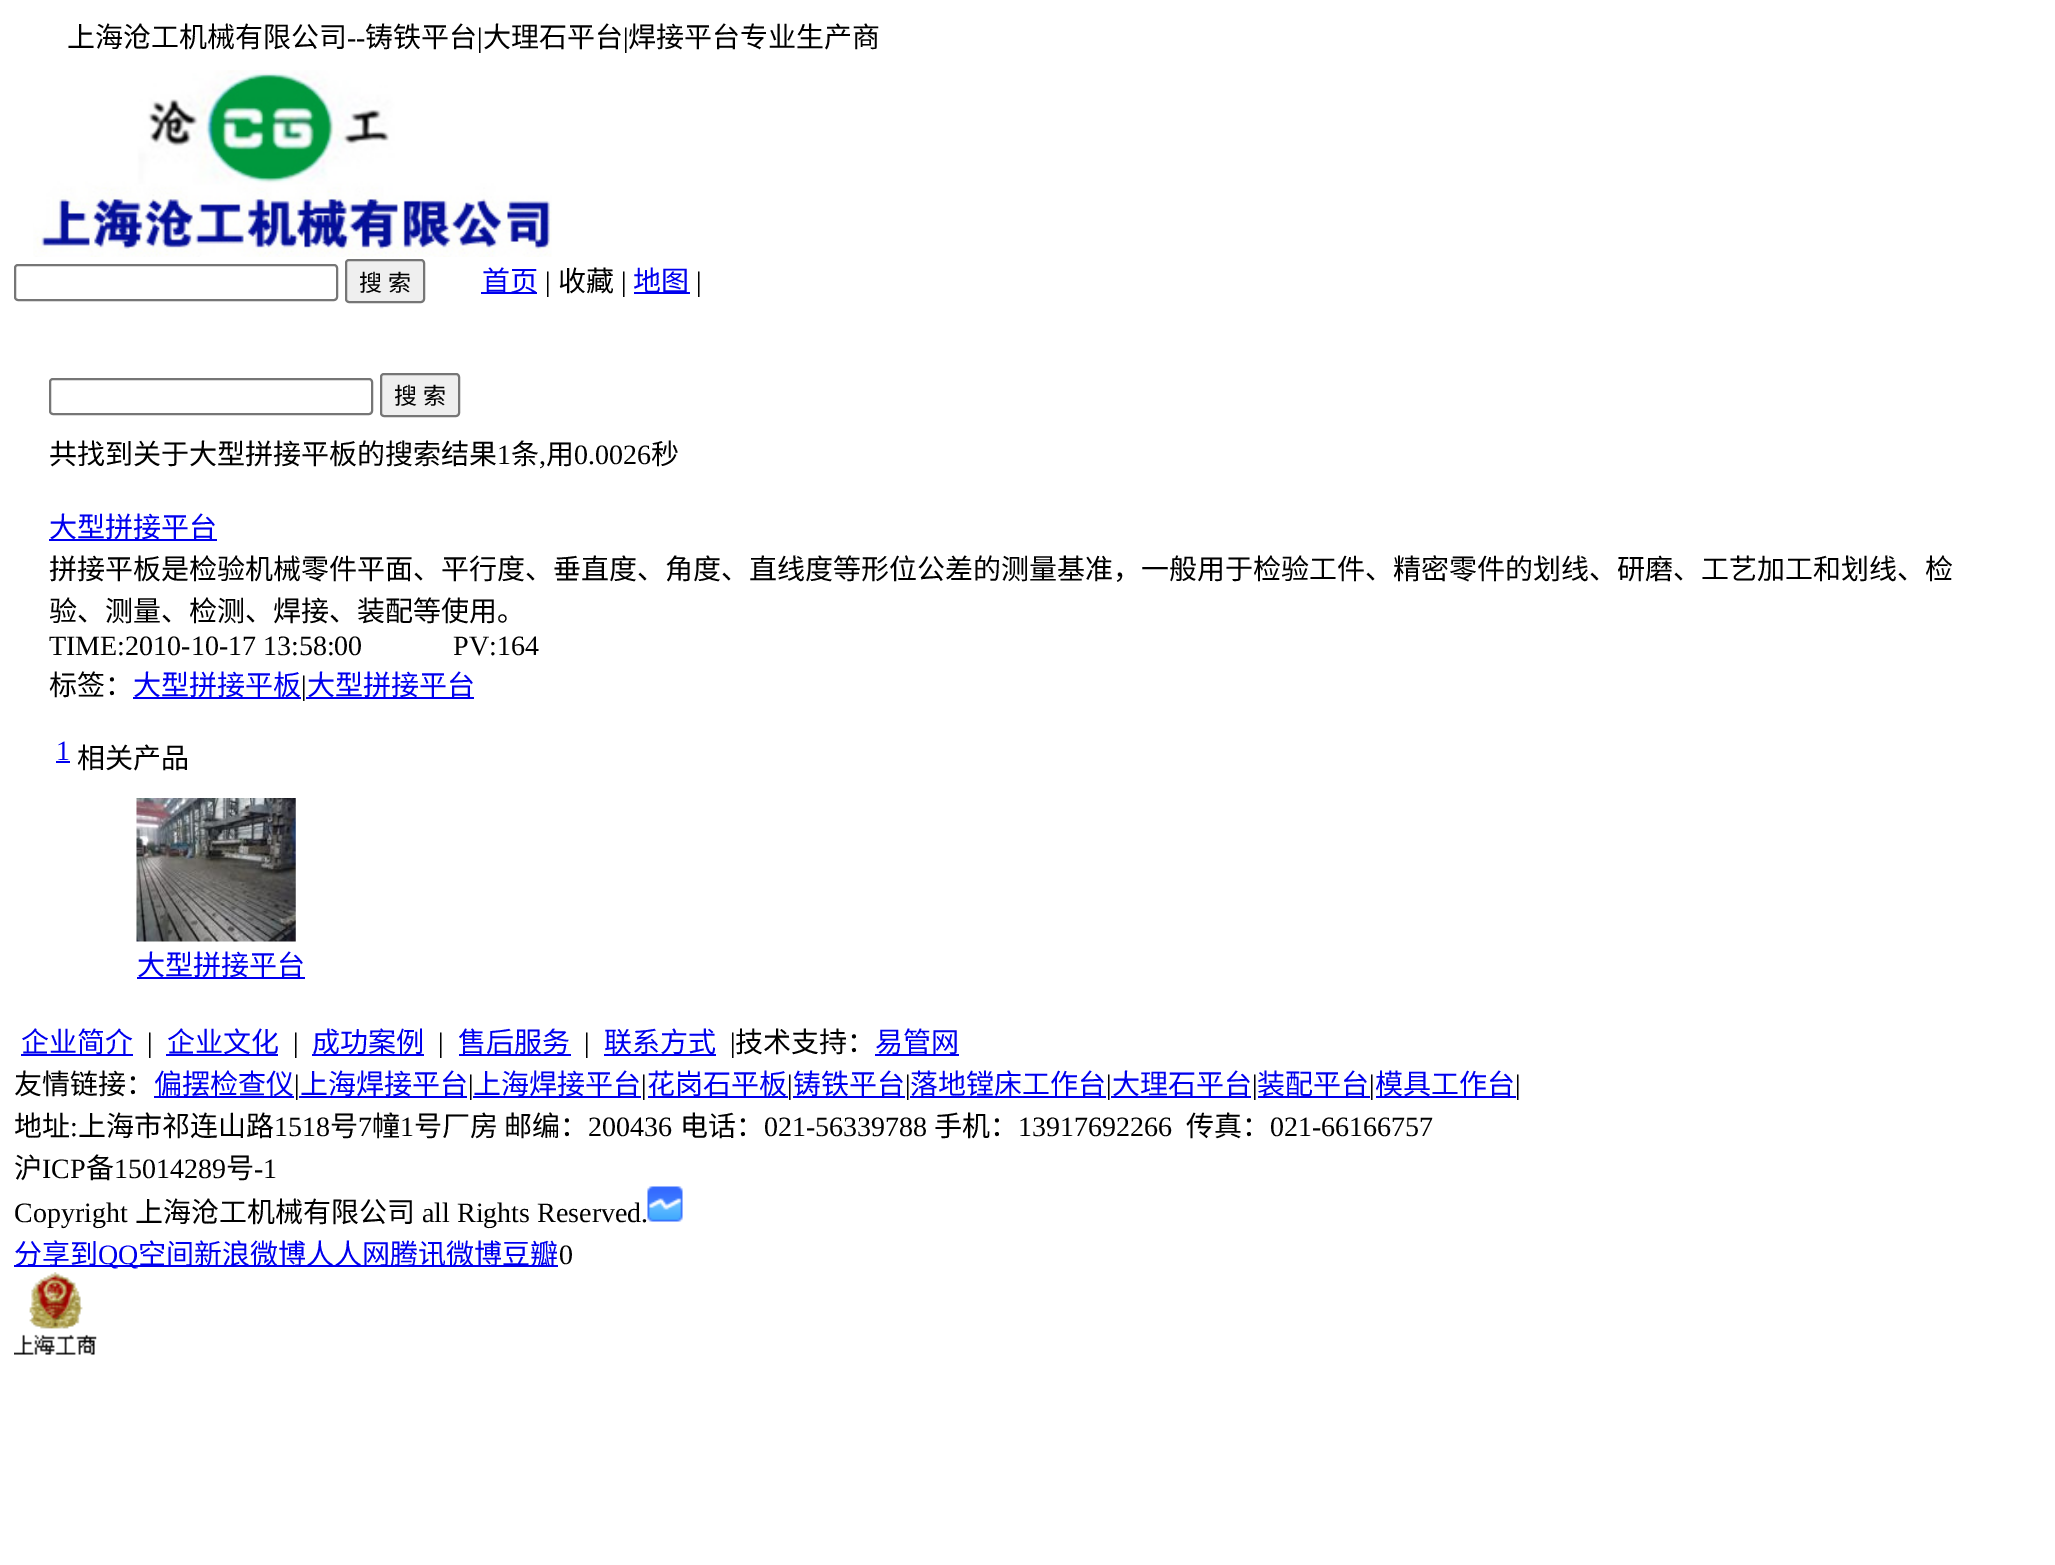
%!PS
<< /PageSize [2055 1565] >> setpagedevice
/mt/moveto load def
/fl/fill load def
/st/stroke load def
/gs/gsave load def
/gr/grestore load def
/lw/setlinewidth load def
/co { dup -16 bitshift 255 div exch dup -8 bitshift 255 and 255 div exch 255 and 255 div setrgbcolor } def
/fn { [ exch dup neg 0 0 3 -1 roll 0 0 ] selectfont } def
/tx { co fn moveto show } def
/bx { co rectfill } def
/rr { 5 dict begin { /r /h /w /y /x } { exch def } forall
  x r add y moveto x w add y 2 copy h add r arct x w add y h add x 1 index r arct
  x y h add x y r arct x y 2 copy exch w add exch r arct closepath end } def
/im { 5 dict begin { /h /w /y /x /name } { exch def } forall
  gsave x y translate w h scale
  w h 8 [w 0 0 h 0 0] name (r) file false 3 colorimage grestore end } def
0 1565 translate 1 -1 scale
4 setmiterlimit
0 0 2055 1565 16#FFFFFF bx
(media/1.raw) 33 70 519 187 im
16#767676 co
2 lw
15 265 322 35 3 rr st
16#EFEFEF co
346 260 78 42 3 rr gs fl gr
16#767676 co
st
481 292 56 2 16#0000EE bx
634 292 56 2 16#0000EE bx
16#767676 co
50 379 322 35 3 rr st
16#EFEFEF co
381 374 78 42 3 rr gs fl gr
16#767676 co
st
49 539 168 2 16#0000EE bx
133 697 168 2 16#0000EE bx
306 697 168 2 16#0000EE bx
56 761 14 2 16#0000EE bx
(media/2.raw) 136 798 160 144 im
137 977 168 2 16#0000EE bx
21 1054 112 2 16#0000EE bx
166 1054 112 2 16#0000EE bx
312 1054 112 2 16#0000EE bx
459 1054 112 2 16#0000EE bx
604 1054 112 2 16#0000EE bx
875 1054 84 2 16#0000EE bx
154 1096 140 2 16#0000EE bx
299 1096 168 2 16#0000EE bx
473 1096 168 2 16#0000EE bx
648 1096 140 2 16#0000EE bx
793 1096 112 2 16#0000EE bx
910 1096 196 2 16#0000EE bx
1111 1096 140 2 16#0000EE bx
1258 1096 112 2 16#0000EE bx
1376 1096 140 2 16#0000EE bx
(media/3.raw) 647 1186 36 36 im
14 1265 544 2 16#0000EE bx
(media/4.raw) 14 1272 83 83 im
(上海沧工机械有限公司) 67 47 /NotoSansCJKSC-Regular 28 16#000000 tx
(--) 347 47 /LiberationSerif-Regular 28 16#000000 tx
(铸铁平台) 365 47 /NotoSansCJKSC-Regular 28 16#000000 tx
(|) 477 47 /LiberationSerif-Regular 28 16#000000 tx
(大理石平台) 483 47 /NotoSansCJKSC-Regular 28 16#000000 tx
(|) 623 47 /LiberationSerif-Regular 28 16#000000 tx
(焊接平台专业生产商) 628 47 /NotoSansCJKSC-Regular 28 16#000000 tx
/NotoSansCJKSC-Regular 23 fn
359 291 mt 1 0 32 (搜 索) widthshow
(首页) 482 291 /NotoSansCJKSC-Regular 28 16#0000EE tx
(|) 545 291 /LiberationSerif-Regular 28 16#000000 tx
(收藏) 558 291 /NotoSansCJKSC-Regular 28 16#000000 tx
(|) 621 291 /LiberationSerif-Regular 28 16#000000 tx
(地图) 633 291 /NotoSansCJKSC-Regular 28 16#0000EE tx
(|) 696 291 /LiberationSerif-Regular 28 16#000000 tx
/NotoSansCJKSC-Regular 23 fn
394 404 mt 1 0 32 (搜 索) widthshow
(共找到关于大型拼接平板的搜索结果) 49 464 /NotoSansCJKSC-Regular 28 16#000000 tx
(1) 497 464 /LiberationSerif-Regular 28 16#000000 tx
(条) 511 464 /NotoSansCJKSC-Regular 28 16#000000 tx
(,) 539 464 /LiberationSerif-Regular 28 16#000000 tx
(用) 546 464 /NotoSansCJKSC-Regular 28 16#000000 tx
(0.0026) 574 464 /LiberationSerif-Regular 28 16#000000 tx
(秒) 651 464 /NotoSansCJKSC-Regular 28 16#000000 tx
(大型拼接平台) 49 537 /NotoSansCJKSC-Regular 28 16#0000EE tx
(拼接平板是检验机械零件平面、平行度、垂直度、角度、直线度等形位公差的测量基准，一般用于检验工件、精密零件的划线、研磨、工艺加工和划线、检) 49 579 /NotoSansCJKSC-Regular 28 16#000000 tx
(验、测量、检测、焊接、装配等使用。) 49 621 /NotoSansCJKSC-Regular 28 16#000000 tx
(TIME:2010-10-17 13:58:00             PV:164) 49 655 /LiberationSerif-Regular 28 16#000000 tx
(标签：) 49 695 /NotoSansCJKSC-Regular 28 16#000000 tx
(大型拼接平板) 133 695 /NotoSansCJKSC-Regular 28 16#0000EE tx
(|) 301 695 /LiberationSerif-Regular 28 16#000000 tx
(大型拼接平台) 307 695 /NotoSansCJKSC-Regular 28 16#0000EE tx
(1) 56 760 /LiberationSerif-Regular 28 16#0000EE tx
(相关产品) 77 768 /NotoSansCJKSC-Regular 28 16#000000 tx
(大型拼接平台) 137 975 /NotoSansCJKSC-Regular 28 16#0000EE tx
(企业简介) 21 1052 /NotoSansCJKSC-Regular 28 16#0000EE tx
(|) 147 1052 /LiberationSerif-Regular 28 16#000000 tx
(企业文化) 167 1052 /NotoSansCJKSC-Regular 28 16#0000EE tx
(|) 293 1052 /LiberationSerif-Regular 28 16#000000 tx
(成功案例) 312 1052 /NotoSansCJKSC-Regular 28 16#0000EE tx
(|) 438 1052 /LiberationSerif-Regular 28 16#000000 tx
(售后服务) 458 1052 /NotoSansCJKSC-Regular 28 16#0000EE tx
(|) 584 1052 /LiberationSerif-Regular 28 16#000000 tx
(联系方式) 604 1052 /NotoSansCJKSC-Regular 28 16#0000EE tx
(|) 730 1052 /LiberationSerif-Regular 28 16#000000 tx
(技术支持：) 735 1052 /NotoSansCJKSC-Regular 28 16#000000 tx
(易管网) 875 1052 /NotoSansCJKSC-Regular 28 16#0000EE tx
(友情链接：) 14 1094 /NotoSansCJKSC-Regular 28 16#000000 tx
(偏摆检查仪) 154 1094 /NotoSansCJKSC-Regular 28 16#0000EE tx
(|) 294 1094 /LiberationSerif-Regular 28 16#000000 tx
(上海焊接平台) 300 1094 /NotoSansCJKSC-Regular 28 16#0000EE tx
(|) 468 1094 /LiberationSerif-Regular 28 16#000000 tx
(上海焊接平台) 473 1094 /NotoSansCJKSC-Regular 28 16#0000EE tx
(|) 641 1094 /LiberationSerif-Regular 28 16#000000 tx
(花岗石平板) 647 1094 /NotoSansCJKSC-Regular 28 16#0000EE tx
(|) 787 1094 /LiberationSerif-Regular 28 16#000000 tx
(铸铁平台) 793 1094 /NotoSansCJKSC-Regular 28 16#0000EE tx
(|) 905 1094 /LiberationSerif-Regular 28 16#000000 tx
(落地镗床工作台) 910 1094 /NotoSansCJKSC-Regular 28 16#0000EE tx
(|) 1106 1094 /LiberationSerif-Regular 28 16#000000 tx
(大理石平台) 1112 1094 /NotoSansCJKSC-Regular 28 16#0000EE tx
(|) 1252 1094 /LiberationSerif-Regular 28 16#000000 tx
(装配平台) 1257 1094 /NotoSansCJKSC-Regular 28 16#0000EE tx
(|) 1369 1094 /LiberationSerif-Regular 28 16#000000 tx
(模具工作台) 1375 1094 /NotoSansCJKSC-Regular 28 16#0000EE tx
(|) 1515 1094 /LiberationSerif-Regular 28 16#000000 tx
(地址) 14 1136 /NotoSansCJKSC-Regular 28 16#000000 tx
(:) 70 1136 /LiberationSerif-Regular 28 16#000000 tx
(上海市祁连山路) 78 1136 /NotoSansCJKSC-Regular 28 16#000000 tx
(1518) 274 1136 /LiberationSerif-Regular 28 16#000000 tx
(号) 330 1136 /NotoSansCJKSC-Regular 28 16#000000 tx
(7) 358 1136 /LiberationSerif-Regular 28 16#000000 tx
(幢) 372 1136 /NotoSansCJKSC-Regular 28 16#000000 tx
(1) 400 1136 /LiberationSerif-Regular 28 16#000000 tx
(号厂房 邮编：) 414 1136 /NotoSansCJKSC-Regular 28 16#000000 tx
(200436) 588 1136 /LiberationSerif-Regular 28 16#000000 tx
(电话：) 680 1136 /NotoSansCJKSC-Regular 28 16#000000 tx
(021-56339788) 764 1136 /LiberationSerif-Regular 28 16#000000 tx
(手机：) 934 1136 /NotoSansCJKSC-Regular 28 16#000000 tx
(13917692266) 1018 1136 /LiberationSerif-Regular 28 16#000000 tx
(传真：) 1186 1136 /NotoSansCJKSC-Regular 28 16#000000 tx
(021-66166757) 1270 1136 /LiberationSerif-Regular 28 16#000000 tx
(沪) 14 1178 /NotoSansCJKSC-Regular 28 16#000000 tx
(ICP) 42 1178 /LiberationSerif-Regular 28 16#000000 tx
(备) 86 1178 /NotoSansCJKSC-Regular 28 16#000000 tx
(15014289) 114 1178 /LiberationSerif-Regular 28 16#000000 tx
(号) 226 1178 /NotoSansCJKSC-Regular 28 16#000000 tx
(-1) 254 1178 /LiberationSerif-Regular 28 16#000000 tx
(Copyright) 14 1222 /LiberationSerif-Regular 28 16#000000 tx
(上海沧工机械有限公司) 135 1222 /NotoSansCJKSC-Regular 28 16#000000 tx
(all Rights Reserved.) 422 1222 /LiberationSerif-Regular 28 16#000000 tx
(分享到) 14 1264 /NotoSansCJKSC-Regular 28 16#0000EE tx
(QQ) 98 1264 /LiberationSerif-Regular 28 16#0000EE tx
(空间新浪微博人人网腾讯微博豆瓣) 138 1264 /NotoSansCJKSC-Regular 28 16#0000EE tx
(0) 559 1264 /LiberationSerif-Regular 28 16#000000 tx
showpage
